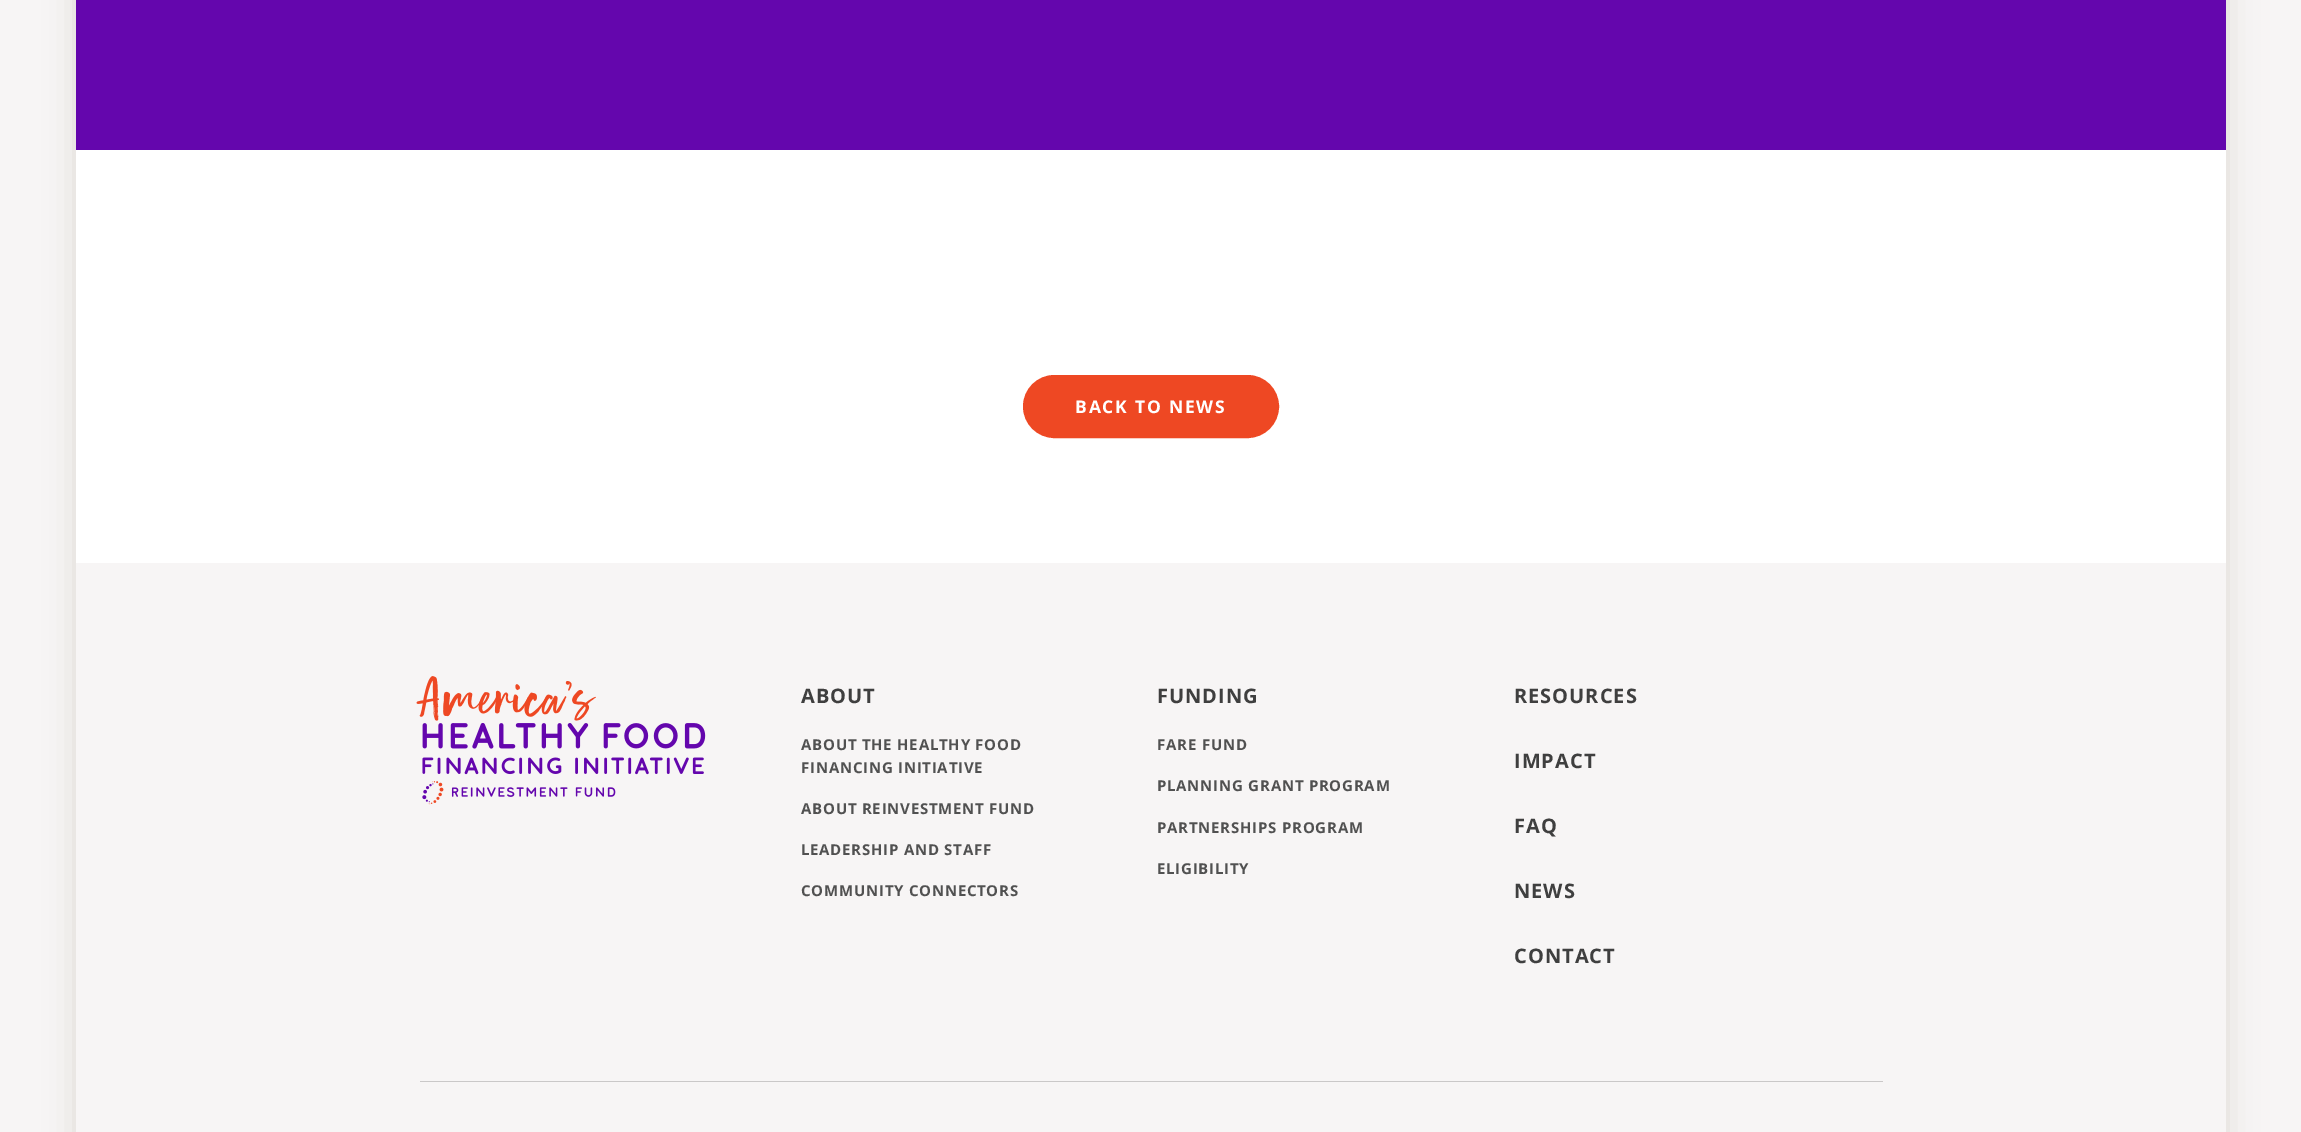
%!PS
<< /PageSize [2301 1132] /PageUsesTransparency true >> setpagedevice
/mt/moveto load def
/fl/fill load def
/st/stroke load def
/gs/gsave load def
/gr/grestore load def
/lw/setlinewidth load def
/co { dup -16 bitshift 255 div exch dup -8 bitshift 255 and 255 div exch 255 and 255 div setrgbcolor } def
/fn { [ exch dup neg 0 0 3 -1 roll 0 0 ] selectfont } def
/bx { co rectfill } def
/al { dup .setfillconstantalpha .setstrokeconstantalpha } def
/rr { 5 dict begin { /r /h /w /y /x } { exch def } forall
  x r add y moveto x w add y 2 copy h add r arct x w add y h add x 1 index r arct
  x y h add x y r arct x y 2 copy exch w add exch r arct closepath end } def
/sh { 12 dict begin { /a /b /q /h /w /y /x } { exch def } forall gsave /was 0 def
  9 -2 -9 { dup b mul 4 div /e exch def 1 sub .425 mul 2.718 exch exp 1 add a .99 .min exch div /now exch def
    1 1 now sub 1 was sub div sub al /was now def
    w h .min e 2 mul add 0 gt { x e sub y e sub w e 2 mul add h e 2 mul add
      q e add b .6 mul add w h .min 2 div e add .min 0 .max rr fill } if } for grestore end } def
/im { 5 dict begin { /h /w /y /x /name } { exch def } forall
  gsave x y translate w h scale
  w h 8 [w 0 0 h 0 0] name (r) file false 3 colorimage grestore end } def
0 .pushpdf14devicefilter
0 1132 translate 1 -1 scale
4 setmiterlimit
0 0 2301 1132 16#F7F5F5 bx
16#DDD9D2 co
76 -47 2150 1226 0 15.5 1 sh
76 150 2150 413 16#FFFFFF bx
76 0 2150 150 16#6406AD bx
16#EE4823 co
1024.5 376.5 253 60 30 rr gs fl gr
3 lw
st
76 563 2150 569 16#F7F5F5 bx
(media/1.raw) 416 676 290 129 im
420 1081 1463 1 16#CAC8C8 bx
/OpenSans-Bold 17.5 fn
16#FFFFFF co
1075 413 mt 1.75 0 (BACK TO NEWS) ashow
/OpenSans-Bold 20 fn
16#3F3F3F co
801 703 mt 1 0 (ABOUT) ashow
/OpenSans-Bold 15 fn
16#515151 co
801 750 mt .75 0 (ABOUT THE HEALTHY FOOD) ashow
801 773 mt .75 0 (FINANCING INITIATIVE) ashow
801 814 mt .75 0 (ABOUT REINVESTMENT FUND) ashow
801 855 mt .75 0 (LEADERSHIP AND STAFF) ashow
801 896 mt .75 0 (COMMUNITY CONNECTORS) ashow
/OpenSans-Bold 20 fn
16#3F3F3F co
1157 703 mt 1 0 (FUNDING) ashow
/OpenSans-Bold 15 fn
16#515151 co
1157 750 mt .75 0 (FARE FUND) ashow
1157 791 mt .75 0 (PLANNING GRANT PROGRAM) ashow
1157 833 mt .75 0 (PARTNERSHIPS PROGRAM) ashow
1157 874 mt .75 0 (ELIGIBILITY) ashow
/OpenSans-Bold 20 fn
16#3F3F3F co
1514 703 mt 1 0 (RESOURCES) ashow
1514 768 mt 1 0 (IMPACT) ashow
1514 833 mt 1 0 (FAQ) ashow
1514 898 mt 1 0 (NEWS) ashow
1514 963 mt 1 0 (CONTACT) ashow
.poppdf14devicefilter showpage
